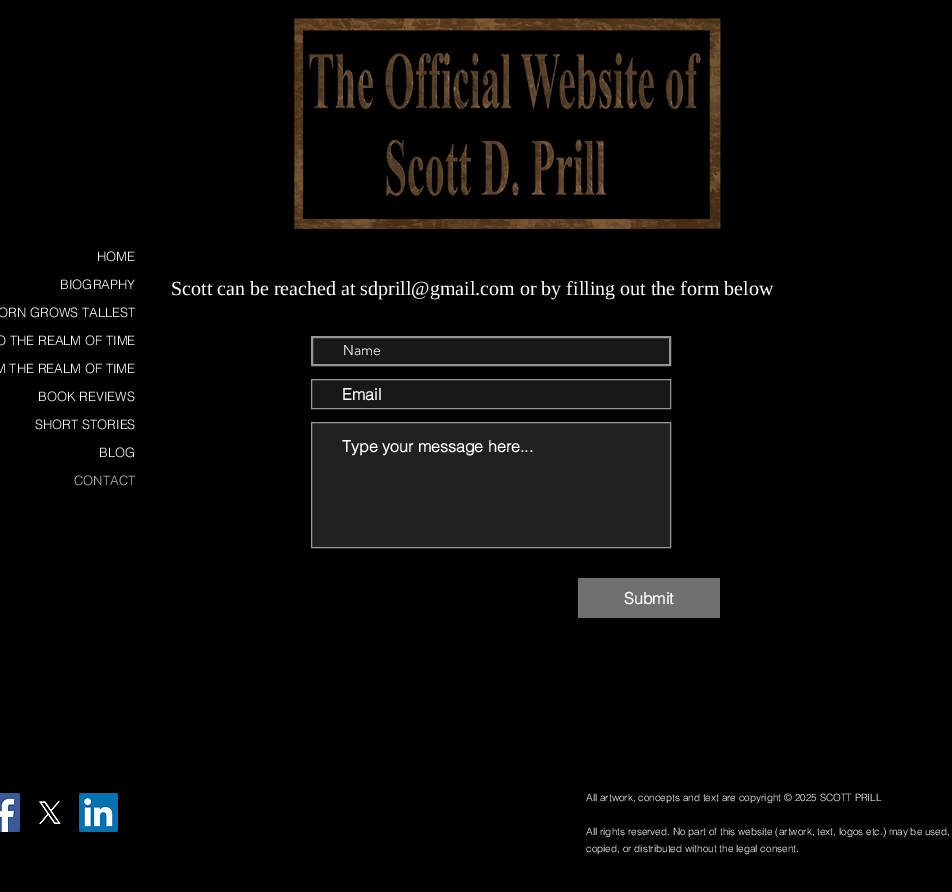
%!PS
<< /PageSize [952 892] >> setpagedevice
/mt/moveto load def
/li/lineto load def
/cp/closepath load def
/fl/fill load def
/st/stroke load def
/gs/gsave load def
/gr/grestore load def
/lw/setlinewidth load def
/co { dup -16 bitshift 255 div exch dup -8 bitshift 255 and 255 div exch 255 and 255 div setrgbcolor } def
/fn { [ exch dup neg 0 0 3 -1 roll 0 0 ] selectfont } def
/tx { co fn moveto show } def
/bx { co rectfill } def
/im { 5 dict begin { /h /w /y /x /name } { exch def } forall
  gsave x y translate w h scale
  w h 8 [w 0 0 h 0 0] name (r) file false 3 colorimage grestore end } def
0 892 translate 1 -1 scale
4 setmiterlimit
0 0 952 892 16#000000 bx
(media/1.raw) 293 18 428 212 im
16#181818 co
312 337 mt 670 337 li 670 365 li 312 365 li cp gs fl gr
16#959595 co
2 lw
st
16#181818 co
311.5 379.5 mt 670.5 379.5 li 670.5 408.5 li 311.5 408.5 li cp gs fl gr
16#959595 co
1 lw
st
16#212121 co
311.5 422.5 mt 670.5 422.5 li 670.5 547.5 li 311.5 547.5 li cp gs fl gr
16#999999 co
st
578 578 142 40 16#717070 bx
(media/2.raw) 0 793 20 39 im
(media/3.raw) 39 801 22 23 im
(media/4.raw) 79 793 39 39 im
(HOME) 97 261 /helvetica-Light 13 16#FFFFFF tx
(BIOGRAPHY) 60 289 /helvetica-Light 13 16#FFFFFF tx
(ORN GROWS TALLEST) -2 317 /helvetica-Light 13 16#FFFFFF tx
(O THE REALM OF TIME) -4 345 /helvetica-Light 13 16#FFFFFF tx
(M THE REALM OF TIME) -5 373 /helvetica-Light 13 16#FFFFFF tx
(BOOK REVIEWS) 38 401 /helvetica-Light 13 16#FFFFFF tx
(SHORT STORIES) 35 429 /helvetica-Light 13 16#FFFFFF tx
(BLOG) 99 457 /helvetica-Light 13 16#FFFFFF tx
(CONTACT) 74 485 /helvetica-Light 13 16#B9B9B9 tx
(Scott can be reached at sdprill@gmail.com or by filling out the form below) 171 295 /LiberationSerif-Regular 20 16#FFFFFF tx
(Name) 343 355 /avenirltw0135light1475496-Light 14 16#FFFFFF tx
(Email) 342 400 /helvetica-Bold 16 16#FFFFFF tx
(Type your message here...) 342 452 /helvetica-Bold 16 16#FFFFFF tx
(Submit) 624 604 /helvetica-Bold 16 16#FFFFFF tx
(All artwork, concepts and text are copyright © 2025 SCOTT PRILL) 586 801 /helvetica-Light 10 16#FFFFFF tx
(All rights reserved. No part of this website \(artwork, text, logos etc.\) may be used,) 586 835 /helvetica-Light 10 16#FFFFFF tx
(copied, or distributed without the legal consent.) 586 852 /helvetica-Light 10 16#FFFFFF tx
showpage
